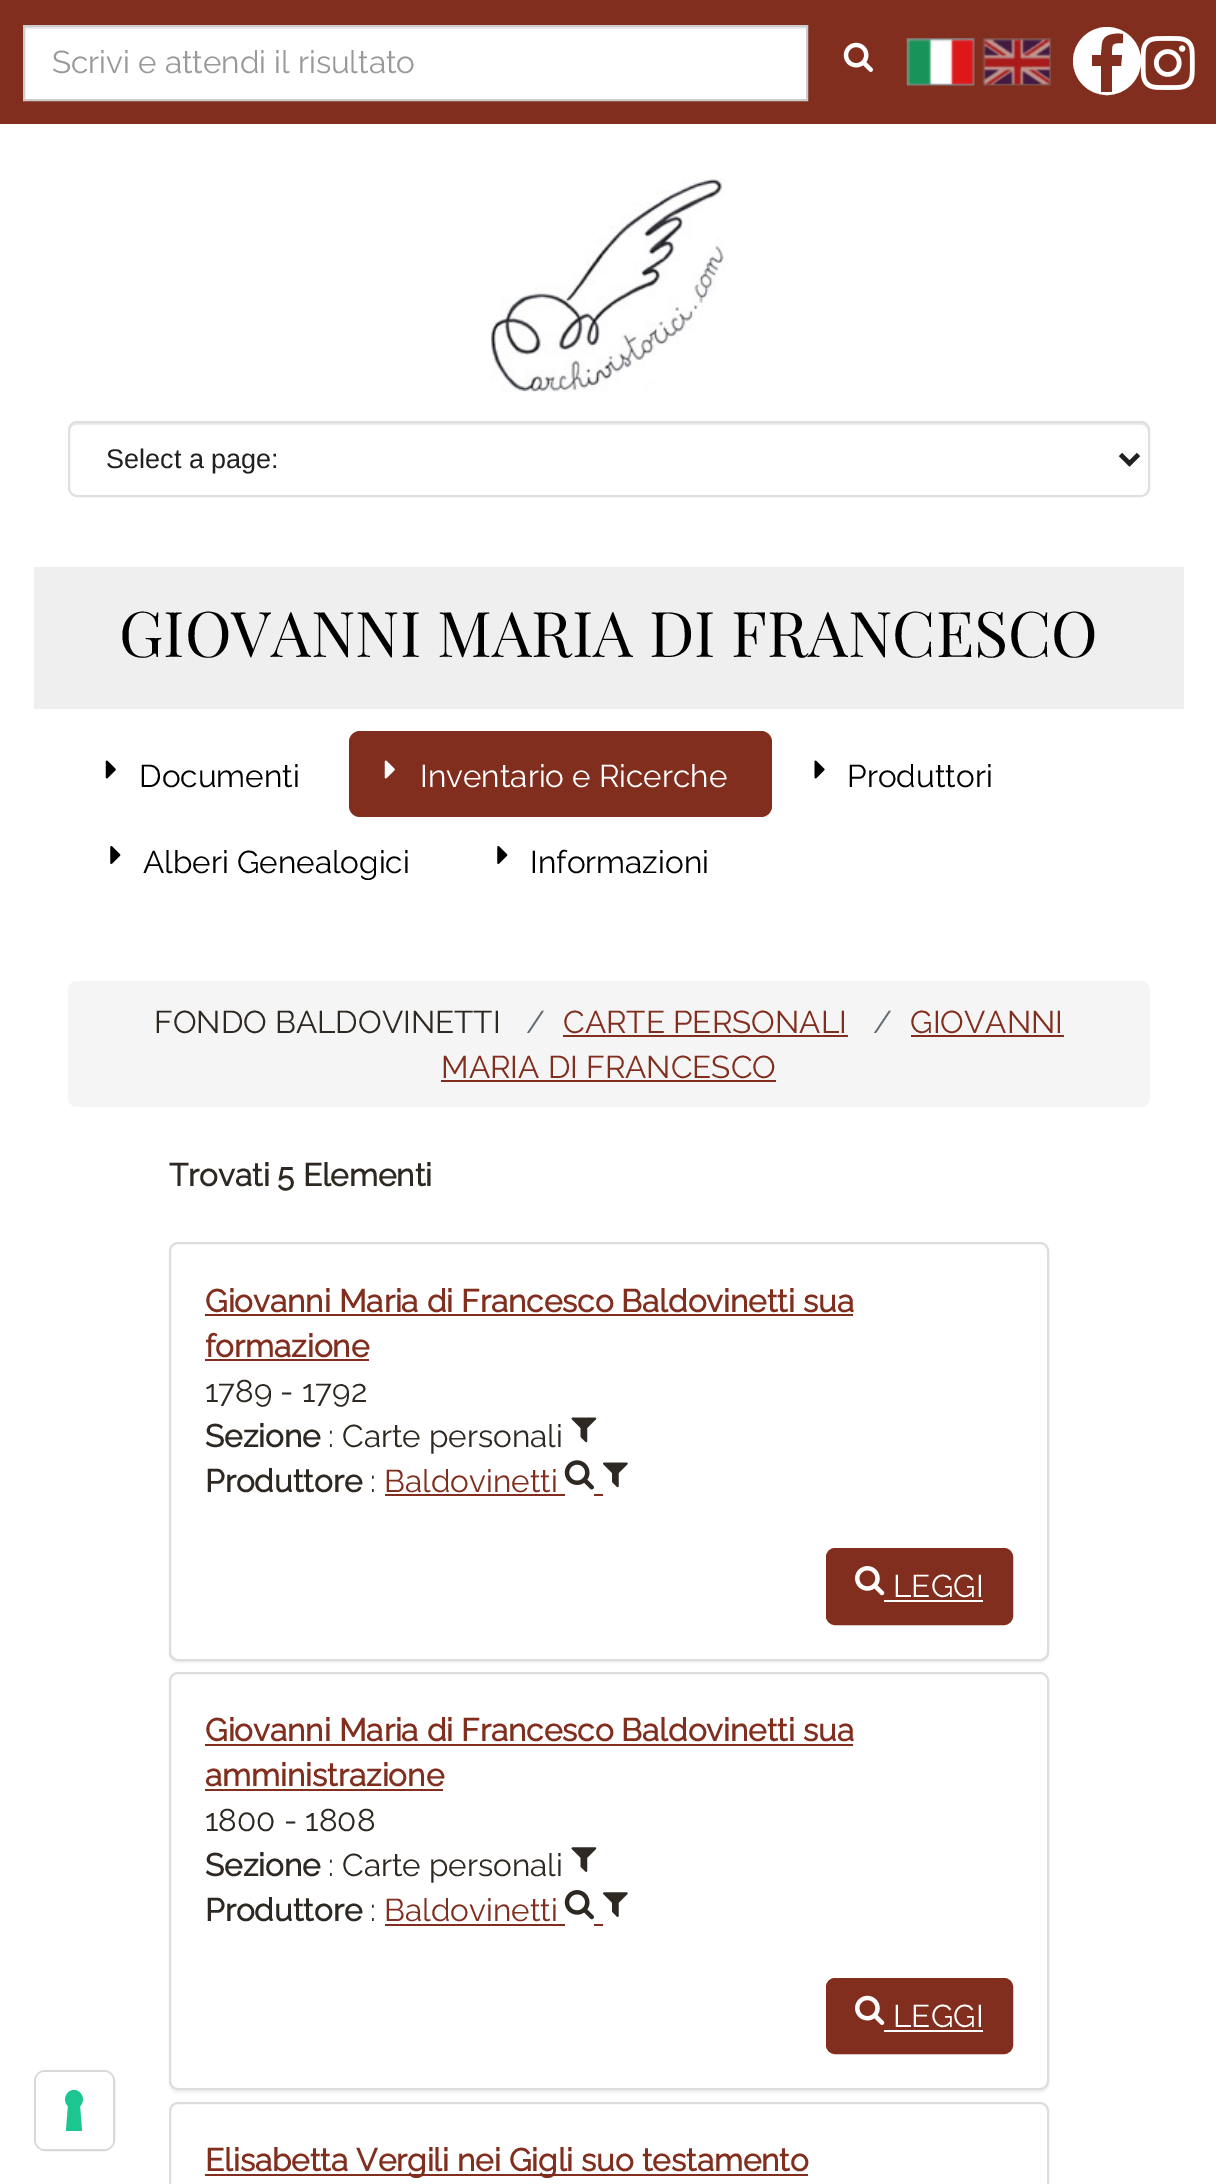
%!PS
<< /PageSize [1216 2184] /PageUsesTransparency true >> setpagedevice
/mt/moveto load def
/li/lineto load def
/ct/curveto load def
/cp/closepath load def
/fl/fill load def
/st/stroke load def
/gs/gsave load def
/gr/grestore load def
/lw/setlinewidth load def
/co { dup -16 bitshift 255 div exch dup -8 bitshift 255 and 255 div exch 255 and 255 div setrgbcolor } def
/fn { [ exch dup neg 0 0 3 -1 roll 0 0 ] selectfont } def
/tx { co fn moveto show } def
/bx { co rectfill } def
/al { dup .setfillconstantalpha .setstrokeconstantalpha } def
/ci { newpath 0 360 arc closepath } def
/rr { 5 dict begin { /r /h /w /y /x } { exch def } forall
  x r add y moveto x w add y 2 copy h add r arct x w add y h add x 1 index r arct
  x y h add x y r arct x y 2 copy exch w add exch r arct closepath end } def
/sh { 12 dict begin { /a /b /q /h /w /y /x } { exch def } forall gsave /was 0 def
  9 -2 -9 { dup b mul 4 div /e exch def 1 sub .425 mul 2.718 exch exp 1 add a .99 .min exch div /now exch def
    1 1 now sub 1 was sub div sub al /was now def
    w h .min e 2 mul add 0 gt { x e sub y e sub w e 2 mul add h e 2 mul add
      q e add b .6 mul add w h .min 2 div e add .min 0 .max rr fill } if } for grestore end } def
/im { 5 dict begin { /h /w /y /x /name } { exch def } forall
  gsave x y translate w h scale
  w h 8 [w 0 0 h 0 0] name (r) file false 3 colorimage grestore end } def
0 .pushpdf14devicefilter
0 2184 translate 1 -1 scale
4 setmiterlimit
0 0 1216 2184 16#FFFFFF bx
0 0 1216 124 16#812E1E bx
25 29 781 70 16#FFFFFF bx
25 27 781 2 16#ECECEC bx
16#CCCCCC co
2 lw
24 26 783 74 rectstroke
(media/1.raw) 843 42 30 30 im
(media/2.raw) 906 38 69 49 im
(media/3.raw) 982 38 69 48 im
16#FFFFFF co
1107 61 33 ci gs fl gr
st
16#812E1E co
1123 34 mt 1123 43 li 1111 43 1112 44 1112 55 ct 1122 55 li 1121 66 li 1112 66 li 1112 92 li 1101 92 li 1101 66 li 1092 66 li 1092 55 li 1101 55 li 1102 44 li 1103 34 1114 33 1123 34 ct cp fl
(media/4.raw) 1140 36 55 54 im
(media/5.raw) 490 178 235 214 im
16#ECECEC co
76 425 mt 1141 425 li 1144 425 1148 428 1148 432 ct 1148 428 1146 423 1141 423 ct 77 423 li 72 423 70 428 70 432 ct 70 428 73 425 76 425 ct cp fl
16#DFDFDF co
69 422 1080 74 8 rr st
16#202020 co
4.5 lw
1120.5 454.5 mt 1129.5 463.5 li 1138.5 454.5 li st
16#D9D9D9 co
2 lw
35 2071 79 79 10 rr st
16#FFFFFF co
36 2072 77 77 9 rr fl
16#1CC691 co
74 2090 mt 82 2090 86 2101 80 2106 ct 82 2131 li 66 2131 li 68 2106 li 62 2101 66 2090 74 2090 ct cp eofill
34 567 1150 142 16#EFEFEF bx
(media/6.raw) 105 760 11 19 im
16#812E1E co
349 731 423 86 11 rr fl
(media/7.raw) 384 760 11 19 im
(media/8.raw) 814 760 11 19 im
(media/9.raw) 110 846 11 18 im
(media/9.raw) 497 846 11 18 im
16#F5F5F5 co
68 981 1082 126 9 rr fl
911 1035 153 2 16#812E1E bx
441 1080 335 2 16#812E1E bx
563 1035 285 2 16#812E1E bx
16#000000 co
169 1244 880 419 9 1 .05 sh
16#FFFFFF co
170 1243 878 417 8 rr gs fl gr
16#DDDDDD co
st
205 1314 648 2 16#812E1E bx
205 1359 164 2 16#812E1E bx
(media/10.raw) 571 1417 26 26 im
385 1494 180 2 16#812E1E bx
(media/11.raw) 564 1460 30 30 im
594 1494 9 2 16#812E1E bx
(media/12.raw) 603 1462 25 26 im
827 1549 185 75 8 rr gs fl gr
st
(media/13.raw) 855 1566 30 30 im
884 1600 99 2 16#FFFFFF bx
16#000000 co
169 1674 880 419 9 1 .05 sh
16#FFFFFF co
170 1673 878 416 8 rr gs fl gr
16#DDDDDD co
st
205 1744 648 2 16#812E1E bx
205 1789 238 2 16#812E1E bx
(media/14.raw) 571 1847 26 25 im
385 1924 180 2 16#812E1E bx
(media/15.raw) 564 1890 30 30 im
594 1924 9 2 16#812E1E bx
(media/16.raw) 603 1892 25 25 im
827 1979 185 74 8 rr gs fl gr
st
(media/17.raw) 855 1995 30 30 im
884 2030 99 2 16#FFFFFF bx
16#DDDDDD co
170 2103 878 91 8 rr st
205 2174 603 2 16#812E1E bx
(Scrivi e attendi il risultato) 52 73 /Raleway-Thin 31.5 16#999999 tx
(Select a page:) 106 468 /LiberationSans-Regular 27 16#202020 tx
(GIOVANNI MARIA DI FRANCESCO) 119 657 /PlayfairDisplay-Regular 63 16#000000 tx
(Documenti) 139 787 /Raleway-Thin 31.5 16#000000 tx
(Inventario e Ricerche) 420 787 /Raleway-Thin 31.5 16#FFFFFF tx
(Produttori) 847 787 /Raleway-Thin 31.5 16#000000 tx
(Alberi Genealogici) 143 873 /Raleway-Thin 31.5 16#000000 tx
(Informazioni) 530 873 /Raleway-Thin 31.5 16#000000 tx
(FONDO BALDOVINETTI) 154 1033 /Raleway-Thin 31.5 16#2D2821 tx
(/) 873 1033 /Raleway-Thin 31.5 16#636C72 tx
(GIOVANNI) 910 1033 /Raleway-Thin 31.5 16#812E1E tx
(MARIA DI FRANCESCO) 441 1078 /Raleway-Thin 31.5 16#812E1E tx
(/) 526 1033 /Raleway-Thin 31.5 16#636C72 tx
(CARTE PERSONALI) 563 1033 /Raleway-Thin 31.5 16#812E1E tx
(Trovati 5 Elementi) 169 1186 /Raleway-Bold 31.5 16#2D2821 tx
(Giovanni Maria di Francesco Baldovinetti sua) 205 1312 /Raleway-Bold 31.5 16#812E1E tx
(formazione) 205 1357 /Raleway-Bold 31.5 16#812E1E tx
(1789 - 1792) 205 1402 /Raleway-Thin 31.5 16#2D2821 tx
(Sezione) 205 1447 /Raleway-Bold 31.5 16#2D2821 tx
(: Carte personali) 328 1447 /Raleway-Thin 31.5 16#2D2821 tx
(Produttore) 205 1492 /Raleway-Bold 31.5 16#2D2821 tx
(:) 370 1492 /Raleway-Thin 31.5 16#2D2821 tx
(Baldovinetti) 384 1492 /Raleway-Thin 31.5 16#812E1E tx
(LEGGI) 893 1597 /Raleway-Thin 31.5 16#FFFFFF tx
(Giovanni Maria di Francesco Baldovinetti sua) 205 1741 /Raleway-Bold 31.5 16#812E1E tx
(amministrazione) 205 1786 /Raleway-Bold 31.5 16#812E1E tx
(1800 - 1808) 205 1831 /Raleway-Thin 31.5 16#2D2821 tx
(Sezione) 205 1876 /Raleway-Bold 31.5 16#2D2821 tx
(: Carte personali) 328 1876 /Raleway-Thin 31.5 16#2D2821 tx
(Produttore) 205 1921 /Raleway-Bold 31.5 16#2D2821 tx
(:) 370 1921 /Raleway-Thin 31.5 16#2D2821 tx
(Baldovinetti) 384 1921 /Raleway-Thin 31.5 16#812E1E tx
(LEGGI) 893 2027 /Raleway-Thin 31.5 16#FFFFFF tx
(Elisabetta Vergili nei Gigli suo testamento) 205 2171 /Raleway-Bold 31.5 16#812E1E tx
.poppdf14devicefilter showpage
